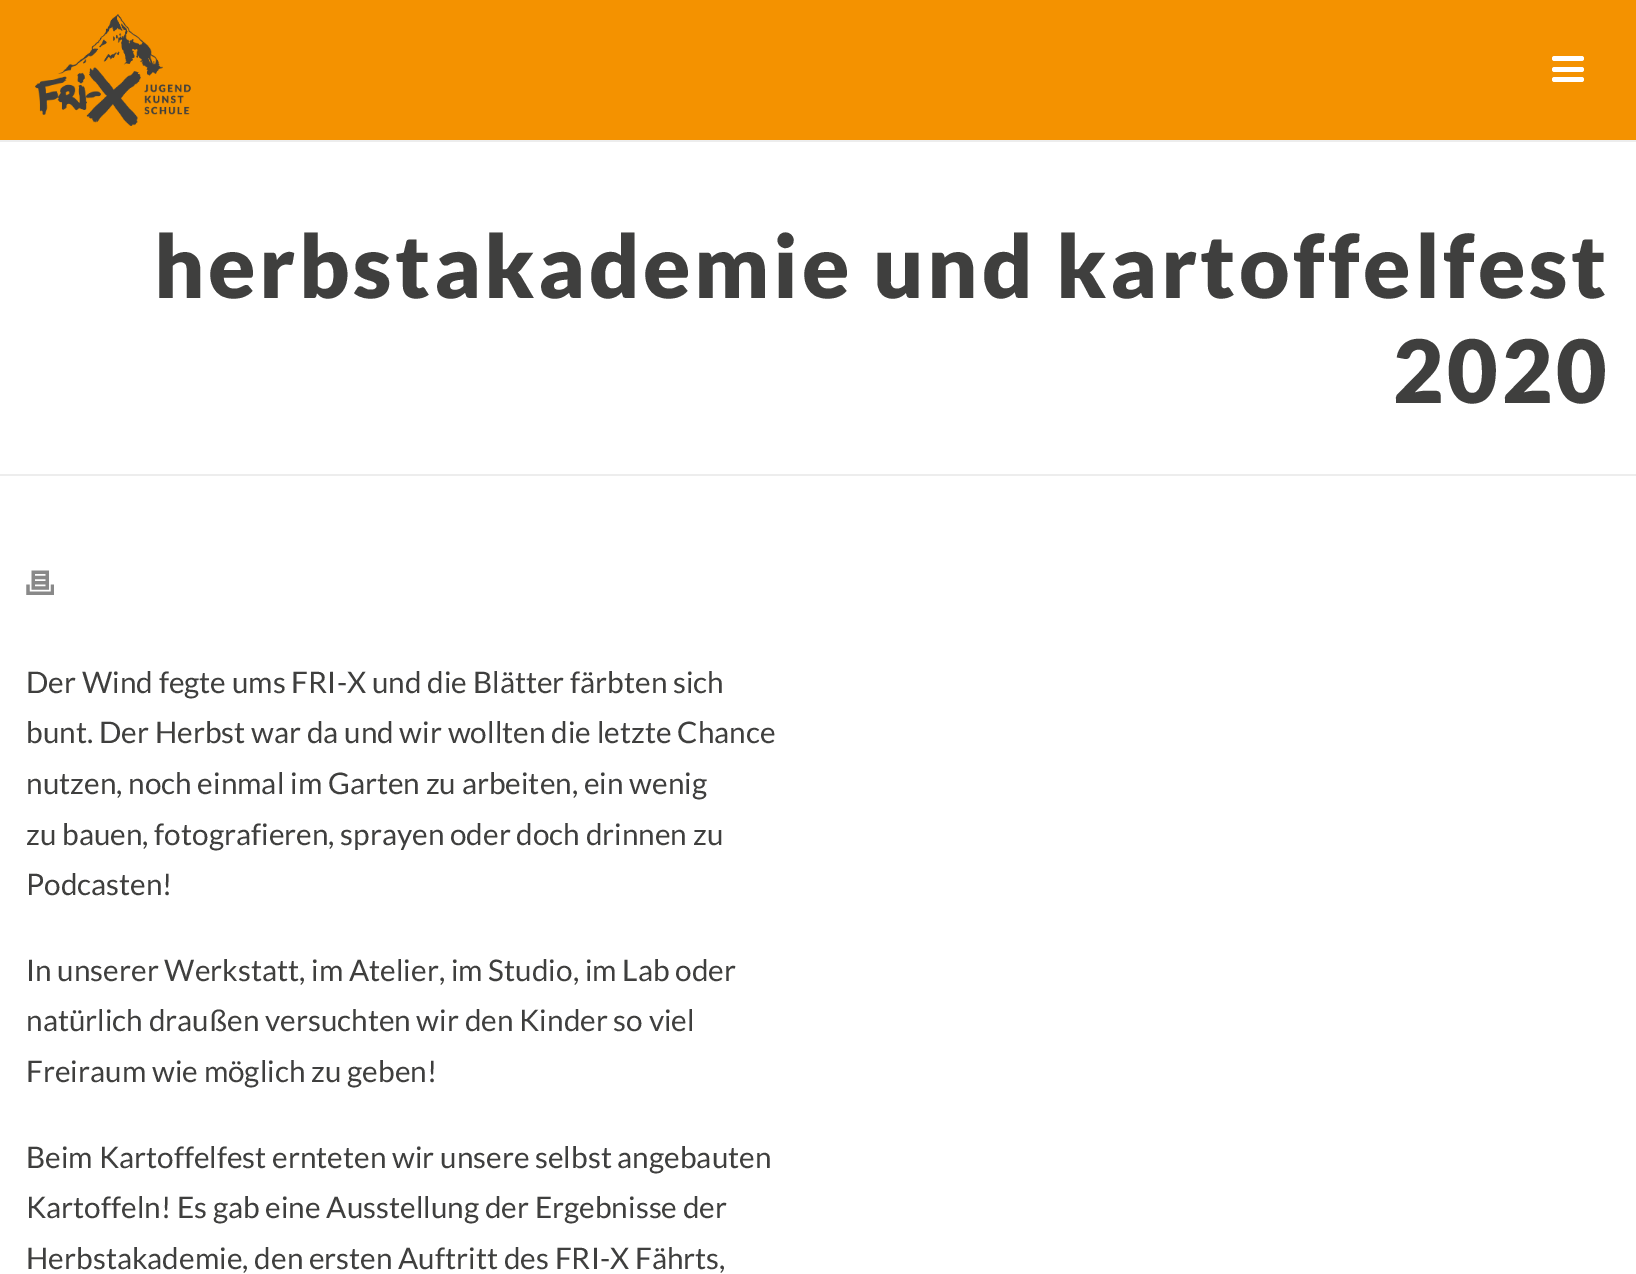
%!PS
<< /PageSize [1636 1274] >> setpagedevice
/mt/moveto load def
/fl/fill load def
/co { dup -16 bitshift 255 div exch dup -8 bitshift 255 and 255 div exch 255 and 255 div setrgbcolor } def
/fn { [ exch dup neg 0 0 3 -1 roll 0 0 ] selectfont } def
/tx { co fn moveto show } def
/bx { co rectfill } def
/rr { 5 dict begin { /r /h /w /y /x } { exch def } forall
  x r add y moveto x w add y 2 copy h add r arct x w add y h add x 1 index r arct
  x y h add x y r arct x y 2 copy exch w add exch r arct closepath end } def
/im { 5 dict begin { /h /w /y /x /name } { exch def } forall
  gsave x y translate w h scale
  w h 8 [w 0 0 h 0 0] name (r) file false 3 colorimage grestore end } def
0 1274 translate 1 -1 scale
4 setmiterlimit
0 0 1636 1274 16#FFFFFF bx
0 474 1636 2 16#EDEDED bx
0 140 1636 2 16#EDEDED bx
0 0 1636 140 16#F49200 bx
(media/1.raw) 35 14 156 112 im
16#FFFFFF co
1552 56 32 5 2.5 rr fl
1552 67 32 5 2.5 rr fl
1552 77 32 5 2.5 rr fl
(media/2.raw) 26 570 28 25 im
/Lato-Black 87.5 fn
16#3F3F3E co
154 298 mt 3.5 0 (herbstakademie und kartoffelfest) ashow
1393 403 mt 3.5 0 (2020) ashow
(Der Wind fegte ums FRI-X und die Blätter färbten sich) 26 693 /Lato-Regular 29.75 16#3F3F3E tx
(bunt. Der Herbst war da und wir wollten die letzte Chance) 26 743 /Lato-Regular 29.75 16#3F3F3E tx
(nutzen, noch einmal im Garten zu arbeiten, ein wenig) 26 794 /Lato-Regular 29.75 16#3F3F3E tx
(zu bauen, fotografieren, sprayen oder doch drinnen zu) 26 845 /Lato-Regular 29.75 16#3F3F3E tx
(Podcasten!) 26 895 /Lato-Regular 29.75 16#3F3F3E tx
(In unserer Werkstatt, im Atelier, im Studio, im Lab oder) 26 981 /Lato-Regular 29.75 16#3F3F3E tx
(natürlich draußen versuchten wir den Kinder so viel) 26 1031 /Lato-Regular 29.75 16#3F3F3E tx
(Freiraum wie möglich zu geben!) 26 1082 /Lato-Regular 29.75 16#3F3F3E tx
(Beim Kartoffelfest ernteten wir unsere selbst angebauten) 26 1168 /Lato-Regular 29.75 16#3F3F3E tx
(Kartoffeln! Es gab eine Ausstellung der Ergebnisse der) 26 1218 /Lato-Regular 29.75 16#3F3F3E tx
(Herbstakademie, den ersten Auftritt des FRI-X Fährts,) 26 1269 /Lato-Regular 29.75 16#3F3F3E tx
showpage
